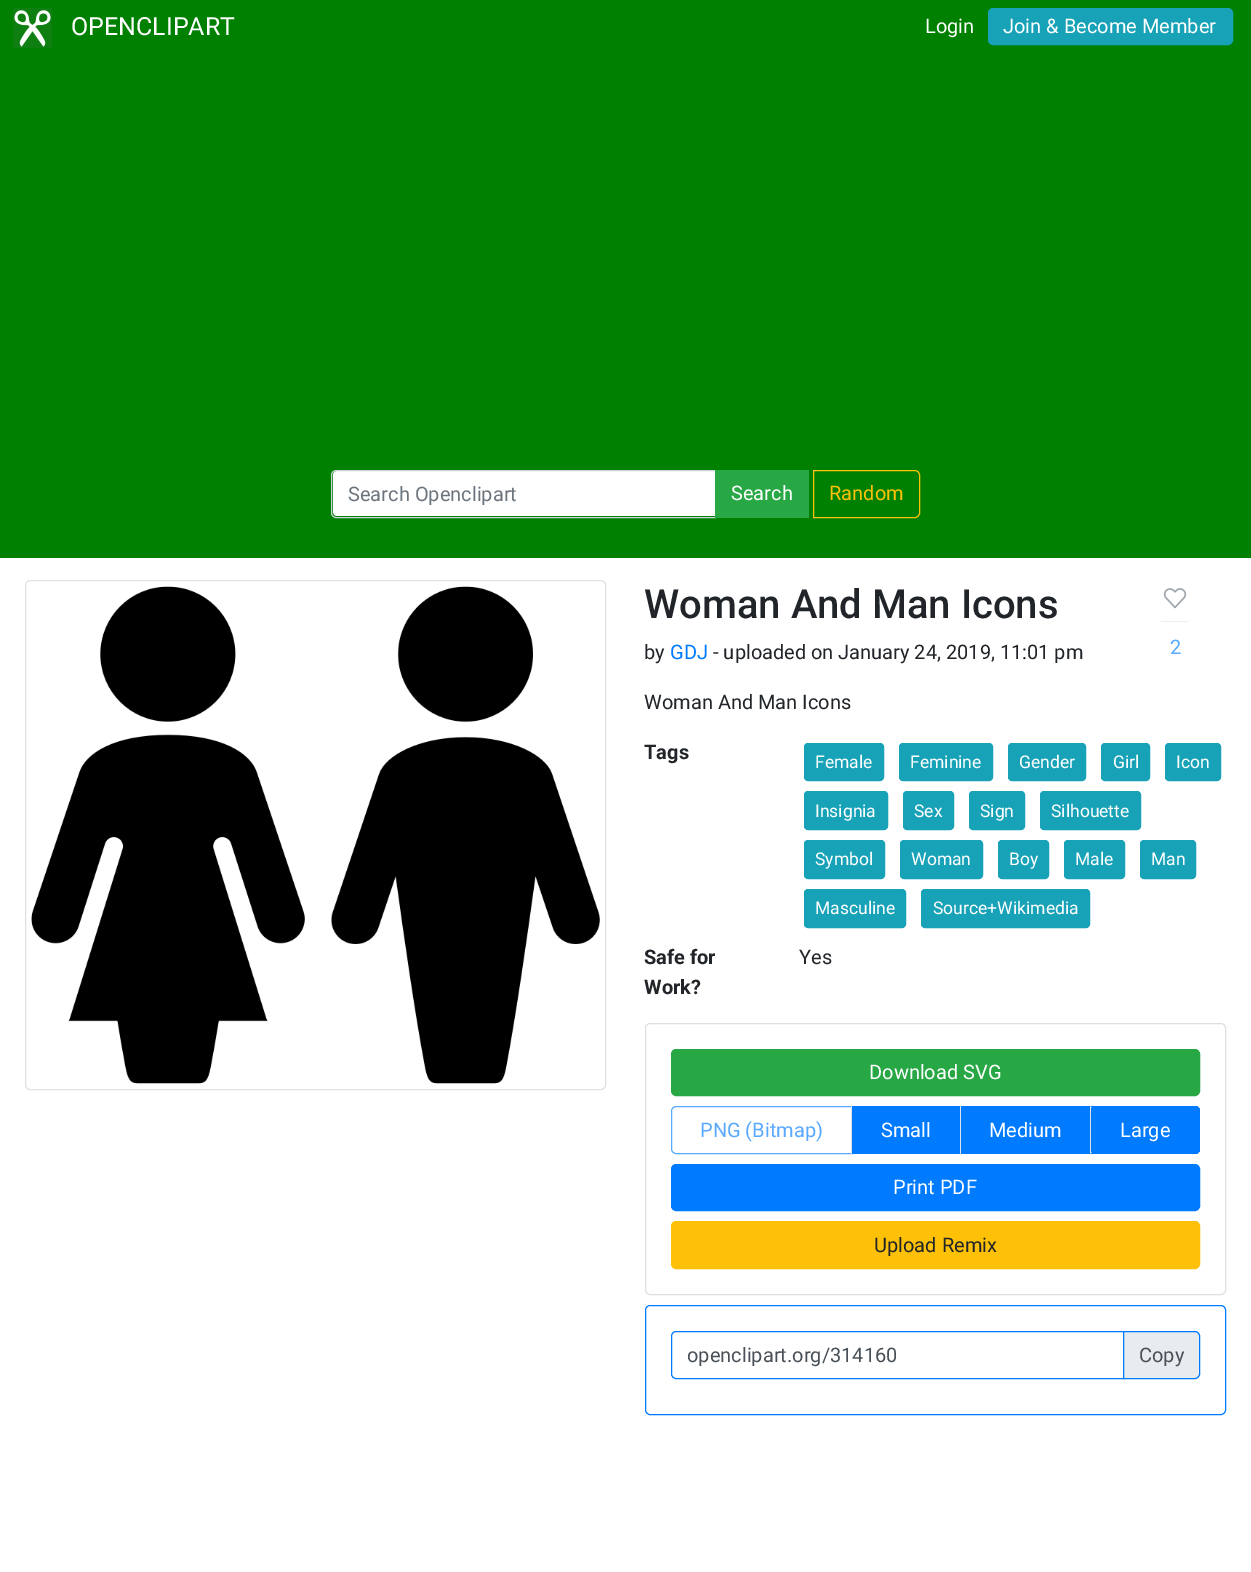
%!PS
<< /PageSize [1251 1572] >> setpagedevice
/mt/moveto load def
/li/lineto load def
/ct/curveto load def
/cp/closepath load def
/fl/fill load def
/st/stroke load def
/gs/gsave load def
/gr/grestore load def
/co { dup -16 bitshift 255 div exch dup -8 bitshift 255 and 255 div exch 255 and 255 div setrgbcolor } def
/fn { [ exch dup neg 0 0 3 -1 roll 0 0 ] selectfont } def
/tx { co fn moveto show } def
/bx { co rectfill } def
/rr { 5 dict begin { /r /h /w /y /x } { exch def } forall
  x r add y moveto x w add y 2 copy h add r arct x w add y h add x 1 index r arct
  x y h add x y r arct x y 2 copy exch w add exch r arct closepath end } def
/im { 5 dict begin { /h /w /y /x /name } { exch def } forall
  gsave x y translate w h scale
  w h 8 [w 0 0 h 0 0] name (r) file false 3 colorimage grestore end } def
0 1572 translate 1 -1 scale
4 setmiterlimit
0 0 1251 1572 16#FFFFFF bx
0 0 1251 558 16#008000 bx
(media/1.raw) 13 8 39 40 im
16#17A2B8 co
988.5 8.5 244 36 4.5 rr gs fl gr
st
16#FFFFFF co
337 471 mt 715 471 li 715 516 li 337 516 li 335 516 333 514 333 512 ct 333 475 li 333 473 335 471 337 471 ct cp fl
16#CED4DA co
336 470.5 mt 715.5 470.5 li 715.5 517.5 li 336 517.5 li 333.5 517.5 331.5 515.5 331.5 513 ct 331.5 475 li 331.5 472.5 333.5 470.5 336 470.5 ct cp st
715 470 94 48 16#28A745 bx
16#FFC107 co
813.5 470.5 mt 915 470.5 li 917.5 470.5 919.5 472.5 919.5 475 ct 919.5 513 li 919.5 515.5 917.5 517.5 915 517.5 ct 813.5 517.5 li cp st
16#DEE2E6 co
25.5 580.5 580 509 4.5 rr st
(media/2.raw) 31 586 569 498 im
(media/3.raw) 1163 588 24 21 im
1161 621 28 1 16#EEEEEE bx
16#17A2B8 co
804.5 743.5 79 37 3.5 rr gs fl gr
st
899.5 743.5 93 37 3.5 rr gs fl gr
st
1008.5 743.5 77 37 3.5 rr gs fl gr
st
1101.5 743.5 48 37 3.5 rr gs fl gr
st
1165.5 743.5 55 37 3.5 rr gs fl gr
st
804.5 791.5 83 38 3.5 rr gs fl gr
st
903.5 791.5 50 38 3.5 rr gs fl gr
st
969.5 791.5 55 38 3.5 rr gs fl gr
st
1040.5 791.5 100 38 3.5 rr gs fl gr
st
804.5 840.5 80 38 3.5 rr gs fl gr
st
900.5 840.5 82 38 3.5 rr gs fl gr
st
998.5 840.5 50 38 3.5 rr gs fl gr
st
1064.5 840.5 60 38 3.5 rr gs fl gr
st
1140.5 840.5 55 38 3.5 rr gs fl gr
st
804.5 889.5 101 38 3.5 rr gs fl gr
st
921.5 889.5 168 38 3.5 rr gs fl gr
st
16#DFDFDF co
645.5 1023.5 580 271 4.5 rr st
16#28A745 co
671.5 1049.5 528 46 4.5 rr gs fl gr
st
16#59A9FF co
676 1106.5 mt 852.5 1106.5 li 852.5 1153.5 li 676 1153.5 li 673.5 1153.5 671.5 1151.5 671.5 1149 ct 671.5 1111 li 671.5 1108.5 673.5 1106.5 676 1106.5 ct cp st
852 1106 108 48 16#007BFF bx
851 1106 1 48 16#DEE2E6 bx
961 1106 129 48 16#007BFF bx
960 1106 1 48 16#DEE2E6 bx
16#007BFF co
1090 1106 mt 1195 1106 li 1198 1106 1200 1108 1200 1111 ct 1200 1149 li 1200 1152 1198 1154 1195 1154 ct 1090 1154 li cp fl
1090 1106 mt 1197 1106 li 1199 1108 li 1198 1109 li 1195 1108 li 1092 1108 li cp fl
1200 1149 mt 1200 1111 li 1200 1110 1200 1108 1199 1108 ct 1198 1109 li 1198 1109 1199 1110 1199 1111 ct 1199 1149 li 1199 1150 1198 1151 1198 1151 ct 1199 1152 li 1200 1152 1200 1150 1200 1149 ct cp fl
1197 1154 mt 1090 1154 li 1092 1152 li 1195 1152 li 1198 1151 li 1199 1152 li cp fl
16#DEE2E6 co
1091 1108 mt 1092 1108 li 1090 1106 li 1090 1154 li 1092 1152 li 1091 1152 li cp fl
16#007BFF co
671.5 1164.5 528 46 4.5 rr gs fl gr
st
16#FFC107 co
671.5 1221.5 528 47 4.5 rr gs fl gr
st
16#007BFF co
645.5 1305.5 580 109 4.5 rr st
676 1331.5 mt 1123.5 1331.5 li 1123.5 1378.5 li 676 1378.5 li 673.5 1378.5 671.5 1376.5 671.5 1374 ct 671.5 1336 li 671.5 1333.5 673.5 1331.5 676 1331.5 ct cp st
16#E9ECEF co
1123.5 1331.5 mt 1195 1331.5 li 1197.5 1331.5 1199.5 1333.5 1199.5 1336 ct 1199.5 1374 li 1199.5 1376.5 1197.5 1378.5 1195 1378.5 ct 1123.5 1378.5 li cp gs fl gr
16#007BFF co
st
(OPENCLIPART) 71 35 /Roboto-Regular 25 16#FFFFFF tx
(Login) 925 33 /Roboto-Regular 20 16#FFFFFF tx
(Join & Become Member) 1003 33 /Roboto-Regular 20 16#FFFFFF tx
(Search Openclipart) 348 501 /Roboto-Regular 20 16#6C757D tx
(Search) 731 500 /Roboto-Regular 20 16#FFFFFF tx
(Random) 829 500 /Roboto-Regular 20 16#FFC107 tx
(Woman And Man Icons) 644 618 /Roboto-Medium 40 16#212529 tx
(by) 644 659 /Roboto-Regular 20 16#212529 tx
(GDJ) 670 659 /Roboto-Regular 20 16#007BFF tx
(- uploaded on January 24, 2019, 11:01 pm) 713 659 /Roboto-Regular 20 16#212529 tx
(Woman And Man Icons) 644 709 /Roboto-Regular 20 16#212529 tx
(2) 1170 654 /Roboto-Regular 20 16#59A9FF tx
(Tags) 644 759 /Roboto-Bold 20 16#212529 tx
(Female) 815 768 /Roboto-Regular 17.5 16#FFFFFF tx
(Feminine) 910 768 /Roboto-Regular 17.5 16#FFFFFF tx
(Gender) 1019 768 /Roboto-Regular 17.5 16#FFFFFF tx
(Girl) 1113 768 /Roboto-Regular 17.5 16#FFFFFF tx
(Icon) 1176 768 /Roboto-Regular 17.5 16#FFFFFF tx
(Insignia) 815 817 /Roboto-Regular 17.5 16#FFFFFF tx
(Sex) 914 817 /Roboto-Regular 17.5 16#FFFFFF tx
(Sign) 980 817 /Roboto-Regular 17.5 16#FFFFFF tx
(Silhouette) 1051 817 /Roboto-Regular 17.5 16#FFFFFF tx
(Symbol) 815 865 /Roboto-Regular 17.5 16#FFFFFF tx
(Woman) 911 865 /Roboto-Regular 17.5 16#FFFFFF tx
(Boy) 1009 865 /Roboto-Regular 17.5 16#FFFFFF tx
(Male) 1075 865 /Roboto-Regular 17.5 16#FFFFFF tx
(Man) 1151 865 /Roboto-Regular 17.5 16#FFFFFF tx
(Masculine) 815 914 /Roboto-Regular 17.5 16#FFFFFF tx
(Source+Wikimedia) 933 914 /Roboto-Regular 17.5 16#FFFFFF tx
(Safe for) 644 964 /Roboto-Bold 20 16#212529 tx
(Work?) 644 994 /Roboto-Bold 20 16#212529 tx
(Yes) 799 964 /Roboto-Regular 20 16#212529 tx
(Download SVG) 869 1079 /Roboto-Regular 20 16#FFFFFF tx
(PNG \(Bitmap\)) 700 1137 /Roboto-Regular 20 16#59A9FF tx
(Small) 881 1137 /Roboto-Regular 20 16#FFFFFF tx
(Medium) 989 1137 /Roboto-Regular 20 16#FFFFFF tx
(Large) 1120 1137 /Roboto-Regular 20 16#FFFFFF tx
(Print PDF) 893 1194 /Roboto-Regular 20 16#FFFFFF tx
(Upload Remix) 874 1252 /Roboto-Regular 20 16#212529 tx
gs
688 1344 420 24 rectclip
(openclipart.org/314160) 687 1362 /Roboto-Regular 20 16#495057 tx
gr
(Copy) 1139 1362 /Roboto-Regular 20 16#495057 tx
showpage
